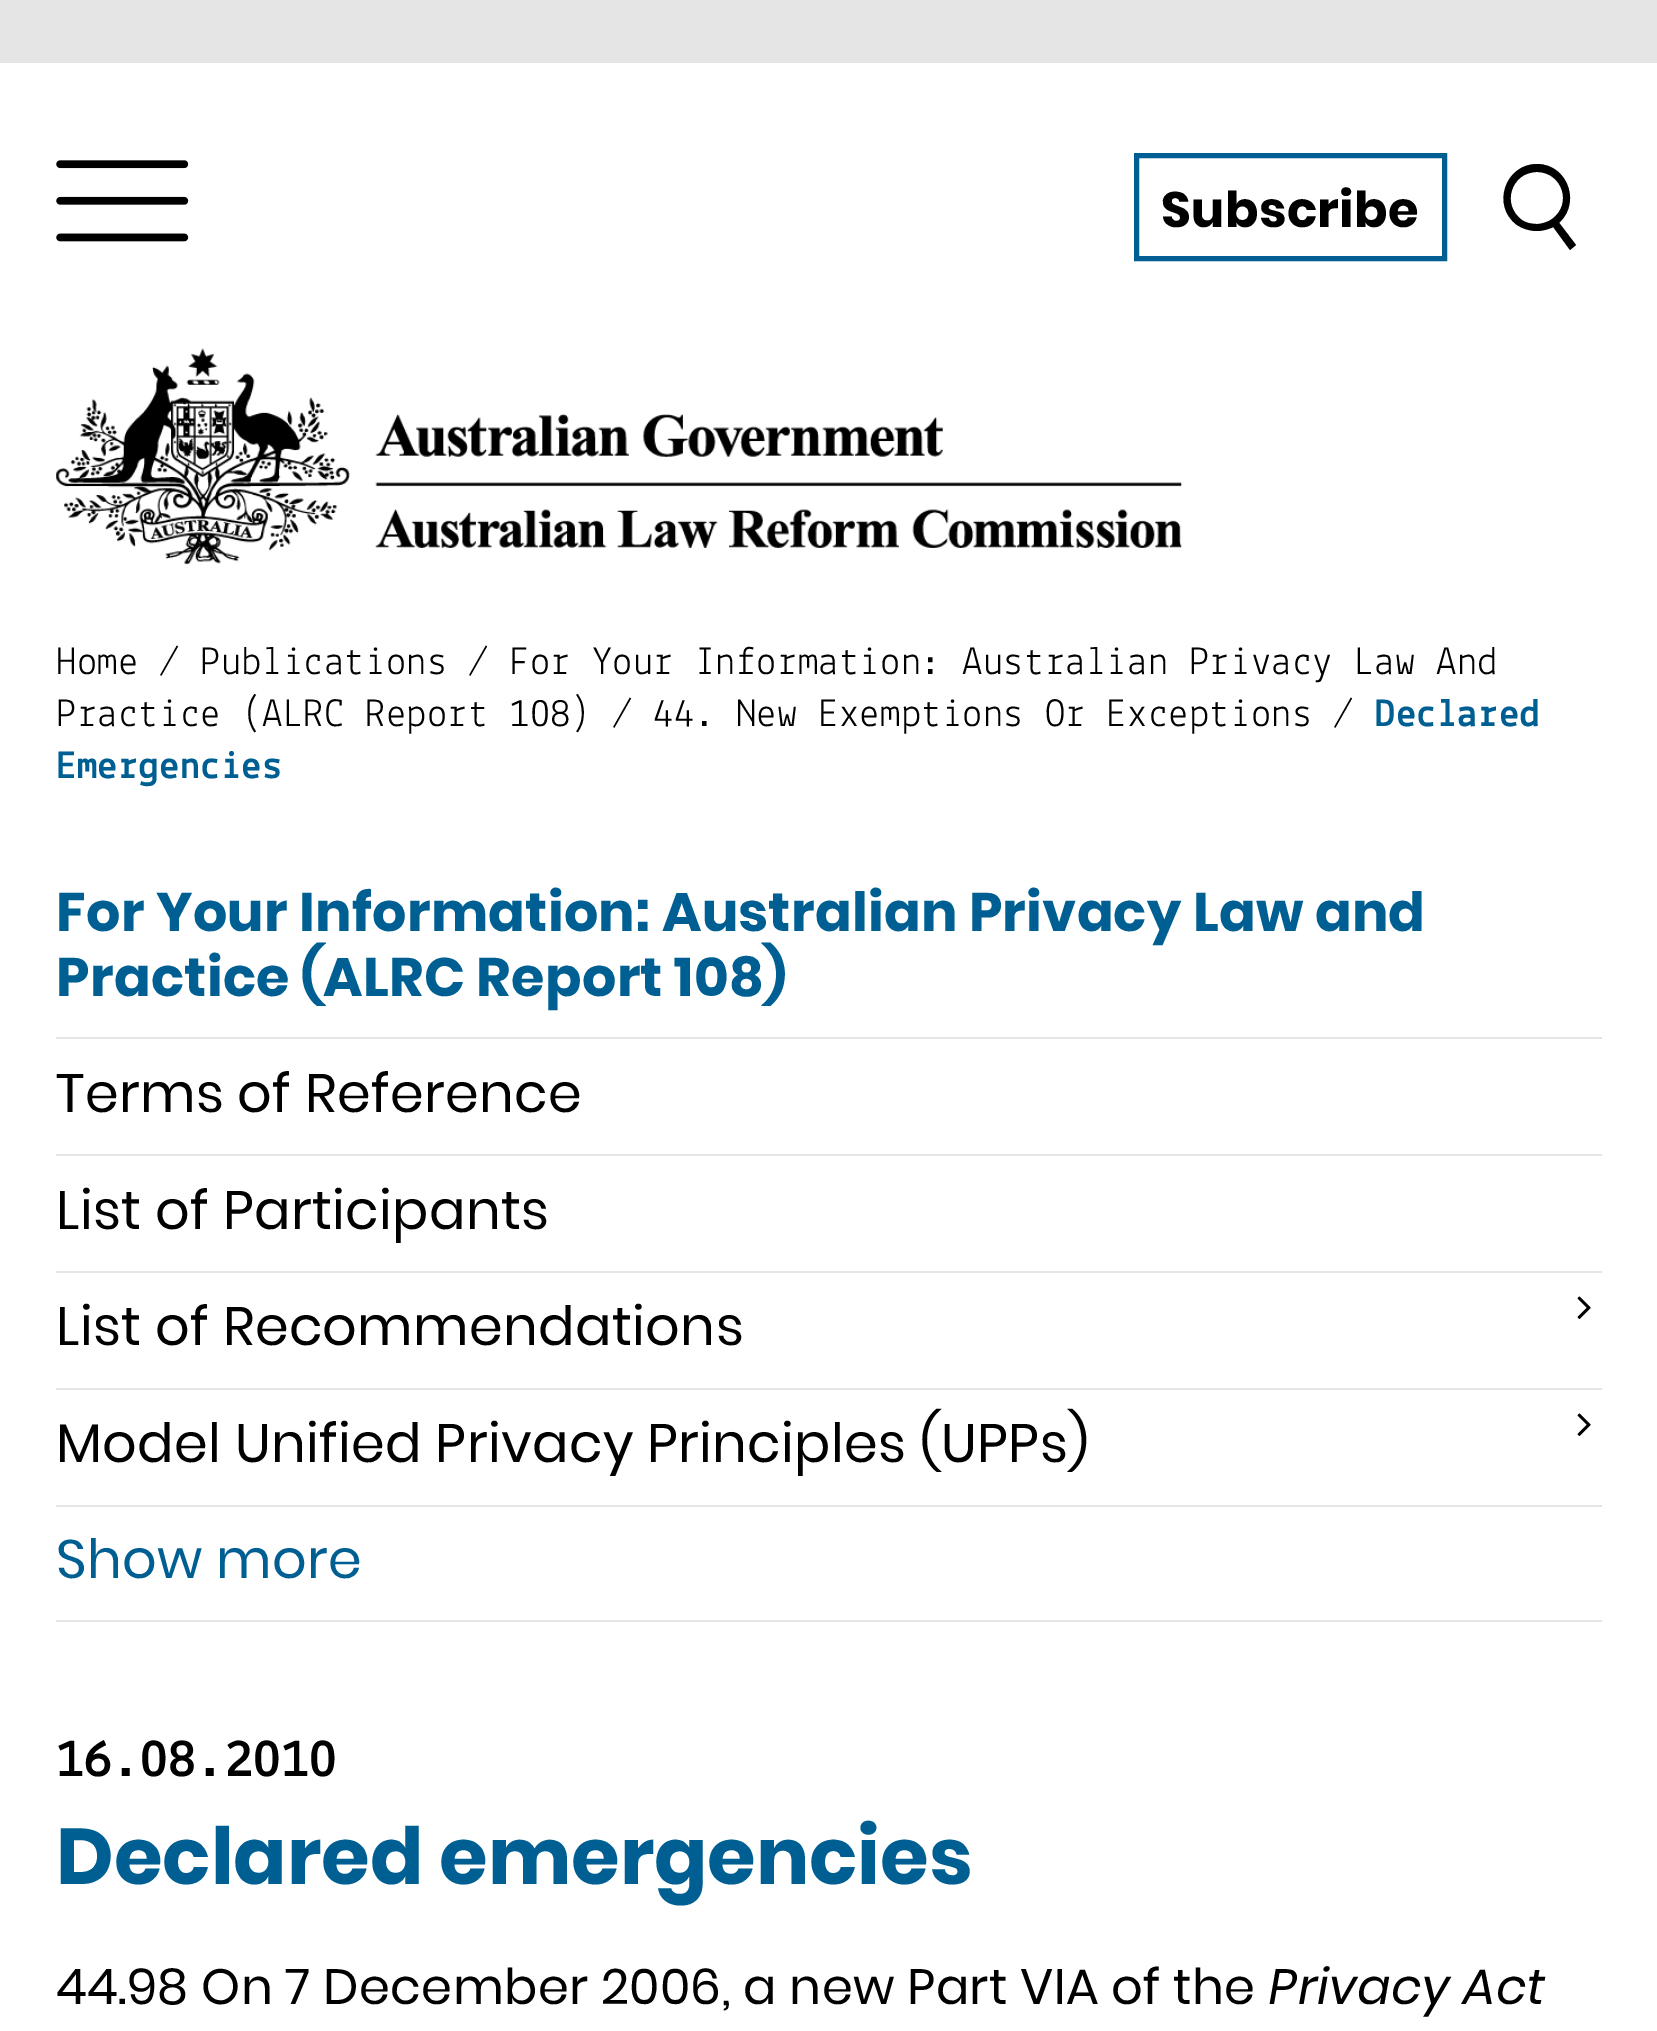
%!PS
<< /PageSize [1657 2031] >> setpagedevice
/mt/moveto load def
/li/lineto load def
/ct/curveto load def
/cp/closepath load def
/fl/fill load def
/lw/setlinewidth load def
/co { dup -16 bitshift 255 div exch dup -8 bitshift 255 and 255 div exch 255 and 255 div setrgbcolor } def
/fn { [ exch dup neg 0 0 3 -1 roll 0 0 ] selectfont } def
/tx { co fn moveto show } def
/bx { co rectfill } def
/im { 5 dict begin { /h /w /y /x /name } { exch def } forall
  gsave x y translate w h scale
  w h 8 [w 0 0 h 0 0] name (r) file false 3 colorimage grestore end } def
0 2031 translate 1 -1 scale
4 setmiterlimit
0 0 1657 2031 16#FFFFFF bx
0 0 1657 63 16#E5E5E5 bx
(media/1.raw) 56 160 133 82 im
16#005F92 co
5 lw
1136.5 155.5 308 103 rectstroke
16#000000 co
1537 231 mt 1530 231 1523 229 1517 225 ct 1491 206 1505 164 1537 164 ct 1569 164 1583 207 1555 226 ct 1550 229 1543 231 1537 231 ct cp 1537 172 mt 1511 172 1501 205 1522 220 ct 1526 223 1532 224 1537 224 ct 1542 224 1548 222 1552 219 ct 1573 204 1562 172 1537 172 ct cp 1557 220 mt 1576 245 li 1570 250 li 1551 224 li cp fl
(media/2.raw) 56 348 1126 217 im
56 1037 1546 2 16#E5E5E5 bx
56 1154 1546 2 16#E5E5E5 bx
56 1271 1546 2 16#E5E5E5 bx
56 1388 1546 2 16#E5E5E5 bx
(media/3.raw) 1577 1296 14 23 im
56 1505 1546 2 16#E5E5E5 bx
(media/3.raw) 1577 1413 14 23 im
56 1620 1546 2 16#E5E5E5 bx
/Poppins-Bold 49.5 fn
16#000000 co
1161 227 mt .35 0 (Subscribe) ashow
/Lekton-Regular 40.5 fn
56 674 mt .35 0 (Home / Publications / For Your Information: Australian Privacy Law And) ashow
56 726 mt .35 0 (Practice \(ALRC Report 108\) / 44. New Exemptions Or Exceptions /) ashow
/Lekton-Bold 40.5 fn
16#005F92 co
1375 726 mt .35 0 (Declared) ashow
56 778 mt .35 0 (Emergencies) ashow
/Poppins-Bold 54 fn
56 931 mt .35 0 (For Your Information: Australian Privacy Law and) ashow
56 996 mt .35 0 (Practice \(ALRC Report 108\)) ashow
/Poppins-Regular 54 fn
16#000000 co
56 1112 mt .35 0 (Terms of Reference) ashow
56 1229 mt .35 0 (List of Participants) ashow
56 1345 mt .35 0 (List of Recommendations) ashow
56 1462 mt .35 0 (Model Unified Privacy Principles \(UPPs\)) ashow
16#005F92 co
56 1578 mt .35 0 (Show more) ashow
/Lekton-Bold 55.5 fn
16#000000 co
56 1776 mt .35 0 (16.08.2010) ashow
(Declared emergencies) 56 1884 /Poppins-Bold 78.75 16#005F92 tx
/Poppins-Regular 49.5 fn
16#000000 co
56 2004 mt .35 0 (44.98 On 7 December 2006, a new Part VIA of the) ashow
/Poppins-Italic 49.5 fn
1269 2004 mt .35 0 (Privacy Act) ashow
showpage
